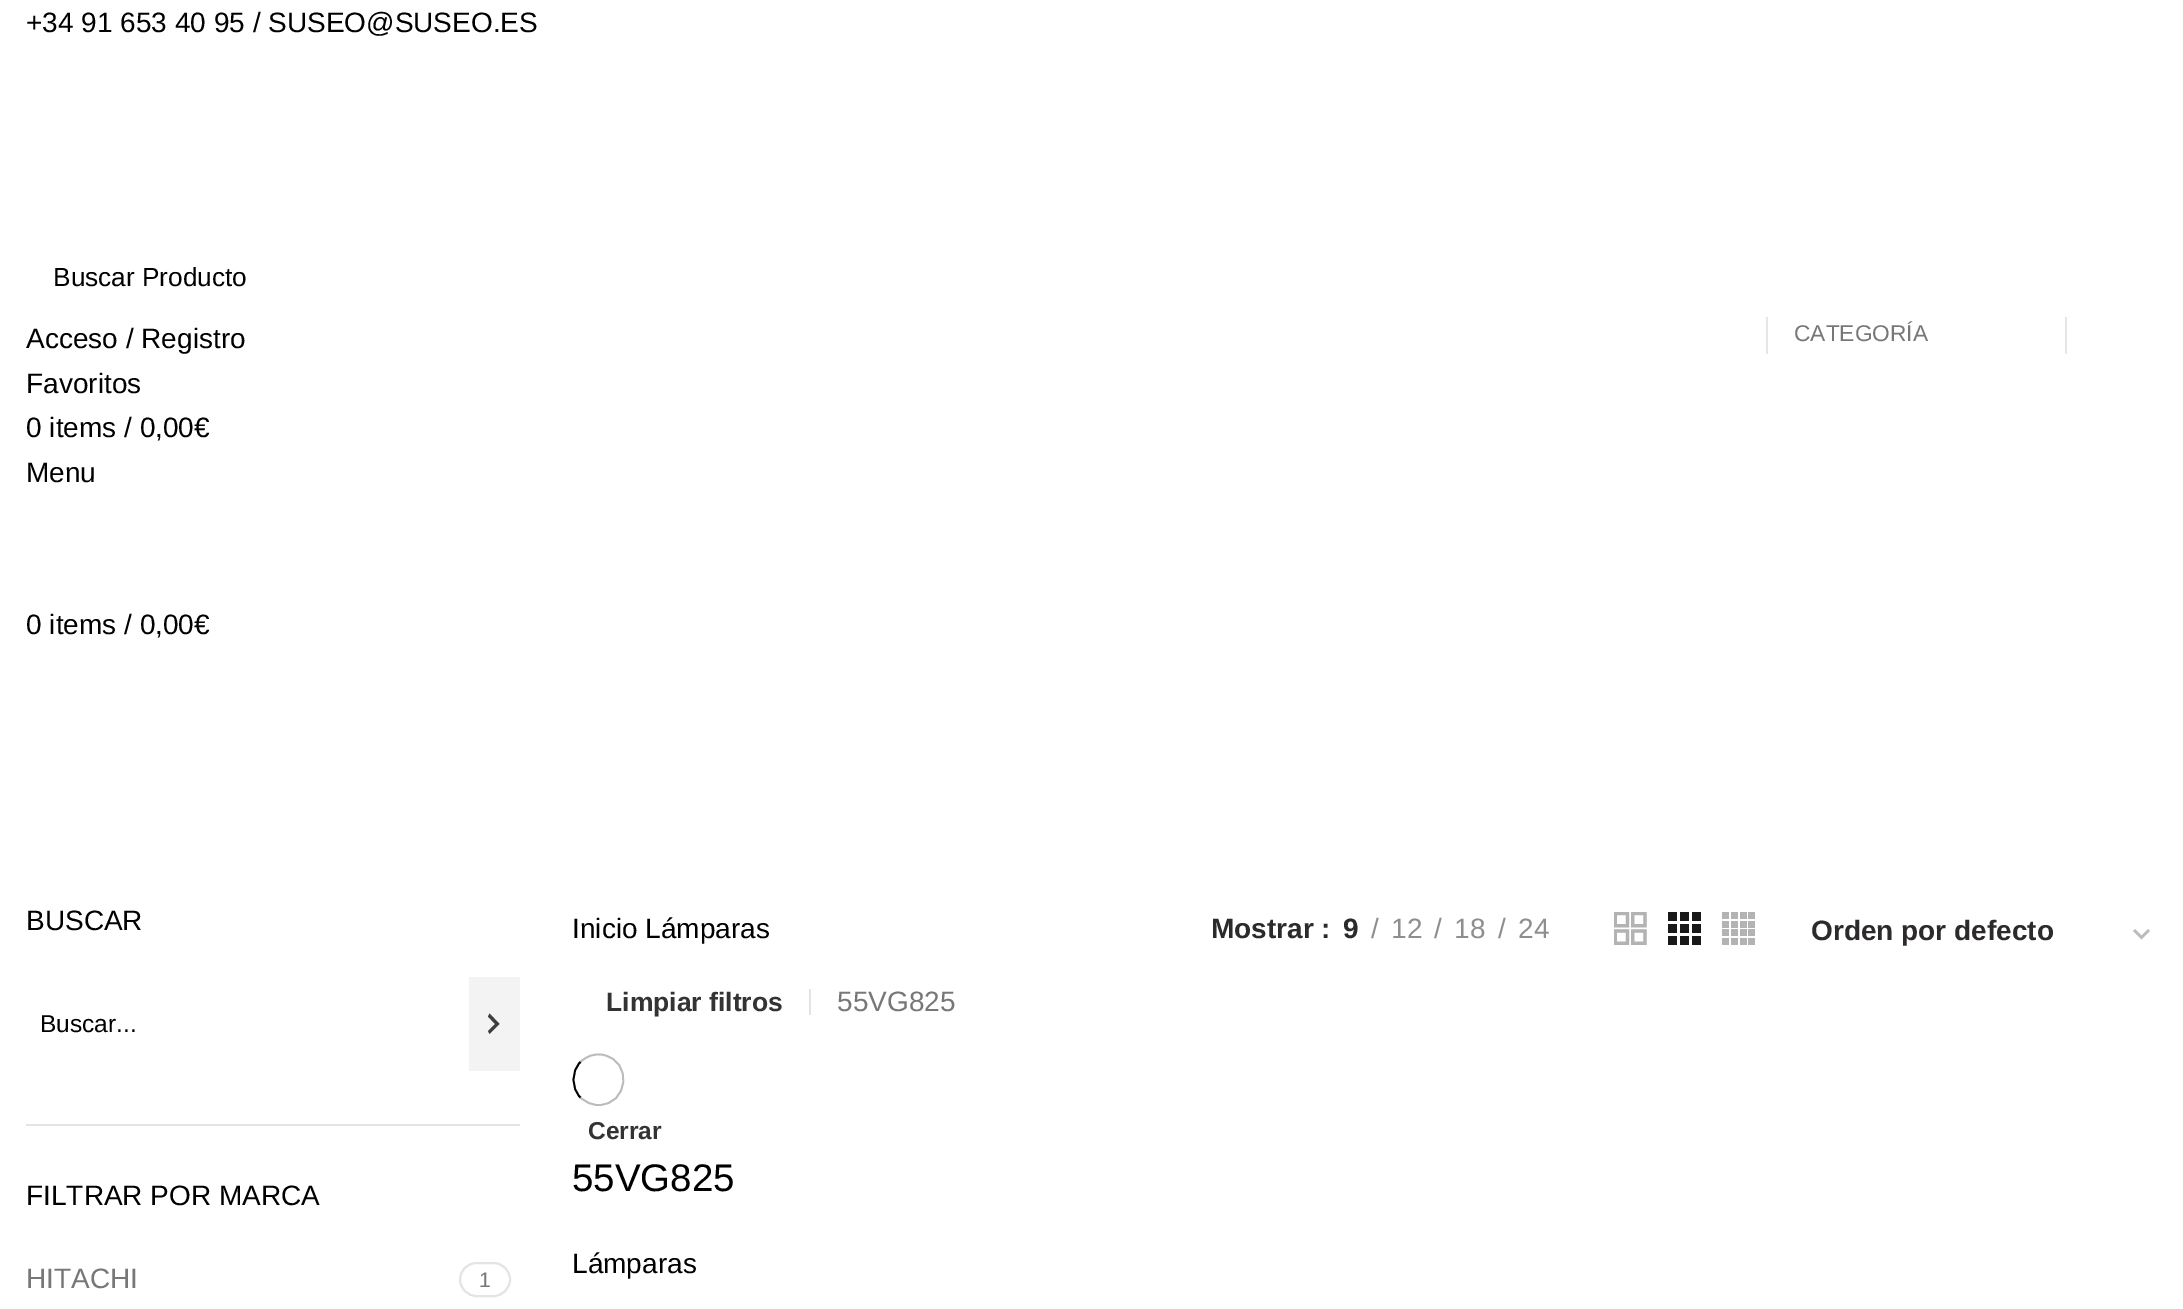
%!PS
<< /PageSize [2183 1309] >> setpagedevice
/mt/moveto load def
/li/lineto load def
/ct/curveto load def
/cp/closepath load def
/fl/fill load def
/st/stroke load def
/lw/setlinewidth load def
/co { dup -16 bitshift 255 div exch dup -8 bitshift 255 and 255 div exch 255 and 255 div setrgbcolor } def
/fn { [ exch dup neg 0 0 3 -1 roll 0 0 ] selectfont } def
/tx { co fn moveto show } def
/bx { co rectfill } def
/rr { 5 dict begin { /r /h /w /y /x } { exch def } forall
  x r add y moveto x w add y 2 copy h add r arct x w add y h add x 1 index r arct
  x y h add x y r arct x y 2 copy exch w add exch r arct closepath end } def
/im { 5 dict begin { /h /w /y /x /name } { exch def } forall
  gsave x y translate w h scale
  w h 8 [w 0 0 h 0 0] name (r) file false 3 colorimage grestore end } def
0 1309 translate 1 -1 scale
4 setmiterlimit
0 0 2183 1309 16#FFFFFF bx
2065 317 2 37 16#E6E6E6 bx
1766 317 2 37 16#E6E6E6 bx
26 1124 494 2 16#E4E4E4 bx
469 977 51 94 16#F3F3F3 bx
16#3E3E3E co
488 1031 mt 495 1024 li 488 1016.5 li 489.5 1013.5 li 499.5 1024 li 489.5 1034 li cp fl
16#E4E4E4 co
2 lw
460 1263 50 33 16.5 rr st
(media/1.raw) 1614 912 33 33 im
(media/2.raw) 1668 912 33 33 im
(media/3.raw) 1722 912 33 33 im
16#BBBBBB co
2.5 lw
2134 930 mt 2141.5 937.5 li 2149 930 li st
809 989 2 26 16#E4E4E4 bx
16#BBBBBB co
1.8 lw
580.5 1062 mt 586.5 1056 595 1053 603.5 1055 ct 633 1061 628.5 1105 598.5 1105 ct 592 1105 585.5 1102.5 580.5 1097.5 ct st
16#000000 co
580.5 1097.5 mt 571 1088 571 1071.5 580.5 1062 ct st
(+34 91 653 40 95 / SUSEO@SUSEO.ES) 26 32 /LiberationSans-Regular 28 16#000000 tx
(Buscar Producto) 53 286 /LiberationSans-Regular 26.25 16#000000 tx
(CATEGORÍA) 1794 341 /LiberationSans-Regular 22.75 16#777777 tx
(Acceso / Registro) 26 348 /LiberationSans-Regular 28 16#000000 tx
(Favoritos) 26 393 /LiberationSans-Regular 28 16#000000 tx
(0 items / 0,00€) 26 437 /LiberationSans-Regular 28 16#000000 tx
(Menu) 26 482 /LiberationSans-Regular 28 16#000000 tx
(0 items / 0,00€) 26 634 /LiberationSans-Regular 28 16#000000 tx
(BUSCAR) 26 930 /LiberationSans-Regular 28 16#000000 tx
(Buscar...) 40 1032 /LiberationSans-Regular 24.5 16#000000 tx
(FILTRAR POR MARCA) 26 1205 /LiberationSans-Regular 28 16#000000 tx
(HITACHI) 26 1288 /LiberationSans-Regular 28 16#777777 tx
(1) 479 1287 /LiberationSans-Regular 21 16#777777 tx
(Inicio Lámparas) 572 938 /LiberationSans-Regular 28 16#000000 tx
(Mostrar :) 1211 938 /LiberationSans-Bold 28 16#2D2A2A tx
(9) 1343 938 /LiberationSans-Bold 28 16#2D2A2A tx
(/) 1371 938 /LiberationSans-Regular 28 16#8E8E8E tx
(12) 1391 938 /LiberationSans-Regular 28 16#8E8E8E tx
(/) 1434 938 /LiberationSans-Regular 28 16#8E8E8E tx
(18) 1454 938 /LiberationSans-Regular 28 16#8E8E8E tx
(/) 1498 938 /LiberationSans-Regular 28 16#8E8E8E tx
(24) 1518 938 /LiberationSans-Regular 28 16#8E8E8E tx
(Orden por defecto) 1811 940 /LiberationSans-Bold 28 16#2D2A2A tx
(Limpiar filtros) 606 1011 /LiberationSans-Bold 26.5 16#333333 tx
(55VG825) 837 1011 /LiberationSans-Regular 28 16#777777 tx
(Cerrar) 588 1139 /LiberationSans-Bold 24.5 16#333333 tx
(55VG825) 572 1191 /LiberationSans-Regular 38.5 16#000000 tx
(Lámparas) 572 1273 /LiberationSans-Regular 28 16#000000 tx
showpage
